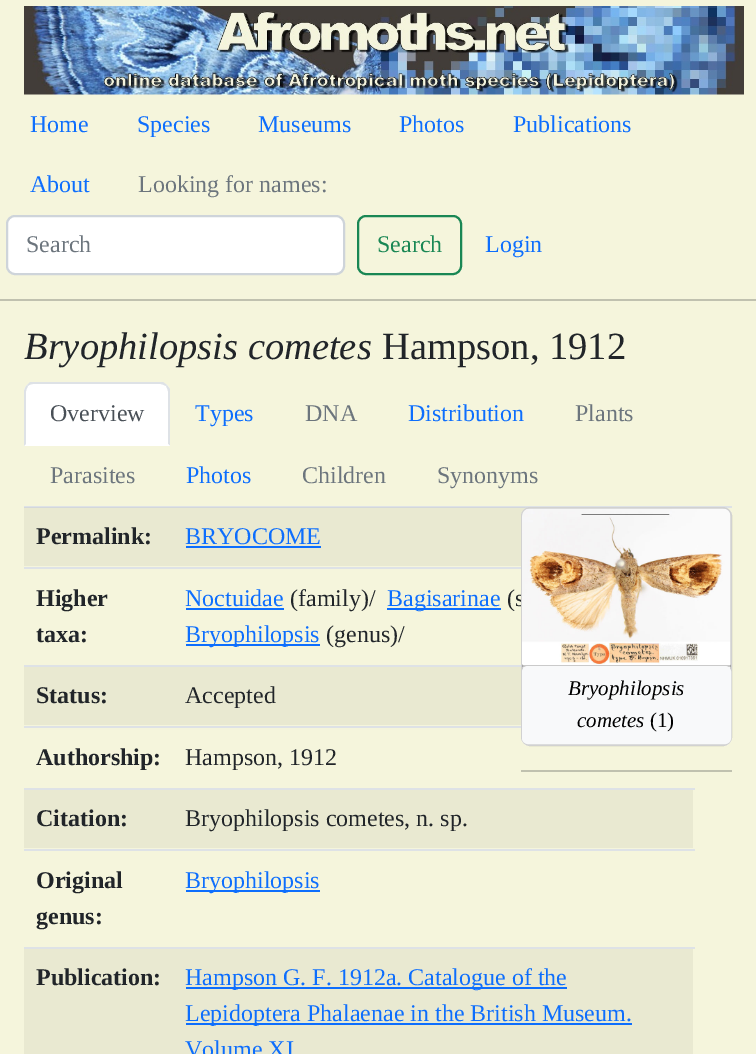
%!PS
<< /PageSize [756 1054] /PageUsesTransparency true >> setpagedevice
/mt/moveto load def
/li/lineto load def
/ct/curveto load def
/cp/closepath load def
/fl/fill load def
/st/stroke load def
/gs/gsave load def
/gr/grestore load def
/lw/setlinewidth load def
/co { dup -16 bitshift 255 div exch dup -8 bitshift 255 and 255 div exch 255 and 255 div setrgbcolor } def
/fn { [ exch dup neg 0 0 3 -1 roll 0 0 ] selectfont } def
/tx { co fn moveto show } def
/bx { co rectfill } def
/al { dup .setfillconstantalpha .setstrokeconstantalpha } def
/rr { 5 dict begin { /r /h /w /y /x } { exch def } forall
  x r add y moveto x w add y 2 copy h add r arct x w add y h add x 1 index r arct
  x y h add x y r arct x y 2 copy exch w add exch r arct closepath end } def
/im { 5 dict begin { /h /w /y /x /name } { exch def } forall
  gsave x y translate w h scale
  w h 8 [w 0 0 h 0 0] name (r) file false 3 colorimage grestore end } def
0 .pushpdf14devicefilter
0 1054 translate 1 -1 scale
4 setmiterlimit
0 0 756 1054 16#F5F5DC bx
24 508 502 58 16#E9E9D1 bx
(media/1.raw) 24 6 720 89 im
16#FFFFFF co
7 216 337 58 8 rr gs fl gr
16#CED4DA co
2 lw
st
16#198754 co
358 216 103 58 8 rr st
0 299 756 2 16#C0C1AF bx
24 506 708 2 16#DEE2E6 bx
24 507 506 1 16#D3D7DB bx
16#FFFFFF co
33 383 mt 161 383 li 166 383 170 387 170 392 ct 170 446 li 24 446 li 24 392 li 24 387 28 383 33 383 ct cp fl
16#DEE2E6 co
33 384 mt 31 384 29 385 28 386 ct 27 385 li 30 382 li 163 382 li 167 385 li 166 386 li 164 385 162 384 160 384 ct cp fl
167 385 mt 170 389 li 170 446 li 168 444 li 168 392 li 168 390 167 388 166 386 ct cp fl
16#FFFFFF co
170 446 mt 168 444 li 26 444 li 24 446 li cp fl
16#DEE2E6 co
24 446 mt 26 444 li 26 392 li 26 390 27 388 28 386 ct 27 385 li 25 387 24 390 24 392 ct cp fl
24 567 497 2 16#DEE2E6 bx
186 546 135 2 16#0D6EFD bx
24 665 497 2 16#DEE2E6 bx
186 608 98 2 16#0D6EFD bx
387 608 114 2 16#0D6EFD bx
186 644 134 2 16#0D6EFD bx
24 667 497 58 16#E9E9D1 bx
24 726 497 2 16#DEE2E6 bx
24 788 671 2 16#DEE2E6 bx
24 790 669 58 16#E9E9D1 bx
24 849 671 2 16#DEE2E6 bx
24 947 671 2 16#DEE2E6 bx
186 890 134 2 16#0D6EFD bx
24 949 669 105 16#E9E9D1 bx
186 987 381 2 16#0D6EFD bx
186 1023 446 2 16#0D6EFD bx
521 770 211 2 16#C0C1AF bx
(Home) 30 132 /LiberationSerif-Regular 24 16#0D6EFD tx
(Species) 137 132 /LiberationSerif-Regular 24 16#0D6EFD tx
(Museums) 258 132 /LiberationSerif-Regular 24 16#0D6EFD tx
(Photos) 399 132 /LiberationSerif-Regular 24 16#0D6EFD tx
(Publications) 513 132 /LiberationSerif-Regular 24 16#0D6EFD tx
(About) 30 192 /LiberationSerif-Regular 24 16#0D6EFD tx
(Looking for names:) 138 192 /LiberationSerif-Regular 24 16#6C757D tx
(Search) 26 252 /LiberationSerif-Regular 24 16#6C757D tx
(Search) 377 252 /LiberationSerif-Regular 24 16#198754 tx
(Login) 485 252 /LiberationSerif-Regular 24 16#0D6EFD tx
(Bryophilopsis cometes) 24 359 /LiberationSerif-Italic 38.5 16#212529 tx
(Hampson, 1912) 382 359 /LiberationSerif-Regular 38.5 16#212529 tx
(Overview) 50 421 /LiberationSerif-Regular 24 16#495057 tx
(Types) 195 421 /LiberationSerif-Regular 24 16#0D6EFD tx
(DNA) 305 421 /LiberationSerif-Regular 24 16#6C757D tx
(Distribution) 408 421 /LiberationSerif-Regular 24 16#0D6EFD tx
(Plants) 575 421 /LiberationSerif-Regular 24 16#6C757D tx
(Parasites) 50 483 /LiberationSerif-Regular 24 16#6C757D tx
(Photos) 186 483 /LiberationSerif-Regular 24 16#0D6EFD tx
(Children) 302 483 /LiberationSerif-Regular 24 16#6C757D tx
(Synonyms) 437 483 /LiberationSerif-Regular 24 16#6C757D tx
(Permalink:) 36 544 /LiberationSerif-Bold 24 16#212529 tx
(BRYOCOME) 185 544 /LiberationSerif-Regular 24 16#0D6EFD tx
(Higher) 36 606 /LiberationSerif-Bold 24 16#212529 tx
(taxa:) 36 642 /LiberationSerif-Bold 24 16#212529 tx
(Noctuidae) 185 606 /LiberationSerif-Regular 24 16#0D6EFD tx
(\(family\)/) 290 606 /LiberationSerif-Regular 24 16#212529 tx
(Bagisarinae) 387 606 /LiberationSerif-Regular 24 16#0D6EFD tx
(\(s) 507 606 /LiberationSerif-Regular 24 16#212529 tx
(Bryophilopsis) 185 642 /LiberationSerif-Regular 24 16#0D6EFD tx
(\(genus\)/) 326 642 /LiberationSerif-Regular 24 16#212529 tx
(Status:) 36 703 /LiberationSerif-Bold 24 16#212529 tx
(Accepted) 185 703 /LiberationSerif-Regular 24 16#212529 tx
(Authorship:) 36 765 /LiberationSerif-Bold 24 16#212529 tx
(Hampson, 1912) 185 765 /LiberationSerif-Regular 24 16#212529 tx
(Citation:) 36 826 /LiberationSerif-Bold 24 16#212529 tx
(Bryophilopsis cometes, n. sp.) 185 826 /LiberationSerif-Regular 24 16#212529 tx
(Original) 36 888 /LiberationSerif-Bold 24 16#212529 tx
(genus:) 36 924 /LiberationSerif-Bold 24 16#212529 tx
(Bryophilopsis) 185 888 /LiberationSerif-Regular 24 16#0D6EFD tx
(Publication:) 36 985 /LiberationSerif-Bold 24 16#212529 tx
(Hampson G. F. 1912a. Catalogue of the) 185 985 /LiberationSerif-Regular 24 16#0D6EFD tx
(Lepidoptera Phalaenae in the British Museum.) 185 1021 /LiberationSerif-Regular 24 16#0D6EFD tx
(Volume XI) 185 1057 /LiberationSerif-Regular 24 16#0D6EFD tx
16#FFFFFF co
521 507 211 239 9 rr fl
0.18 al
16#000000 co
522 508 209 237 8 rr st
1 al
(media/2.raw) 522 508 209 157 im
0.03 al
522 665 209 7 16#000000 bx
0.18 al
522 665 209 2 16#000000 bx
1 al
16#F8F9FA co
523 667 207 76 5 rr gs fl gr
st
(Bryophilopsis) 568 695 /LiberationSerif-Italic 21 16#000000 tx
(cometes) 577 727 /LiberationSerif-Italic 21 16#000000 tx
(\(1\)) 650 727 /LiberationSerif-Regular 21 16#000000 tx
.poppdf14devicefilter showpage
